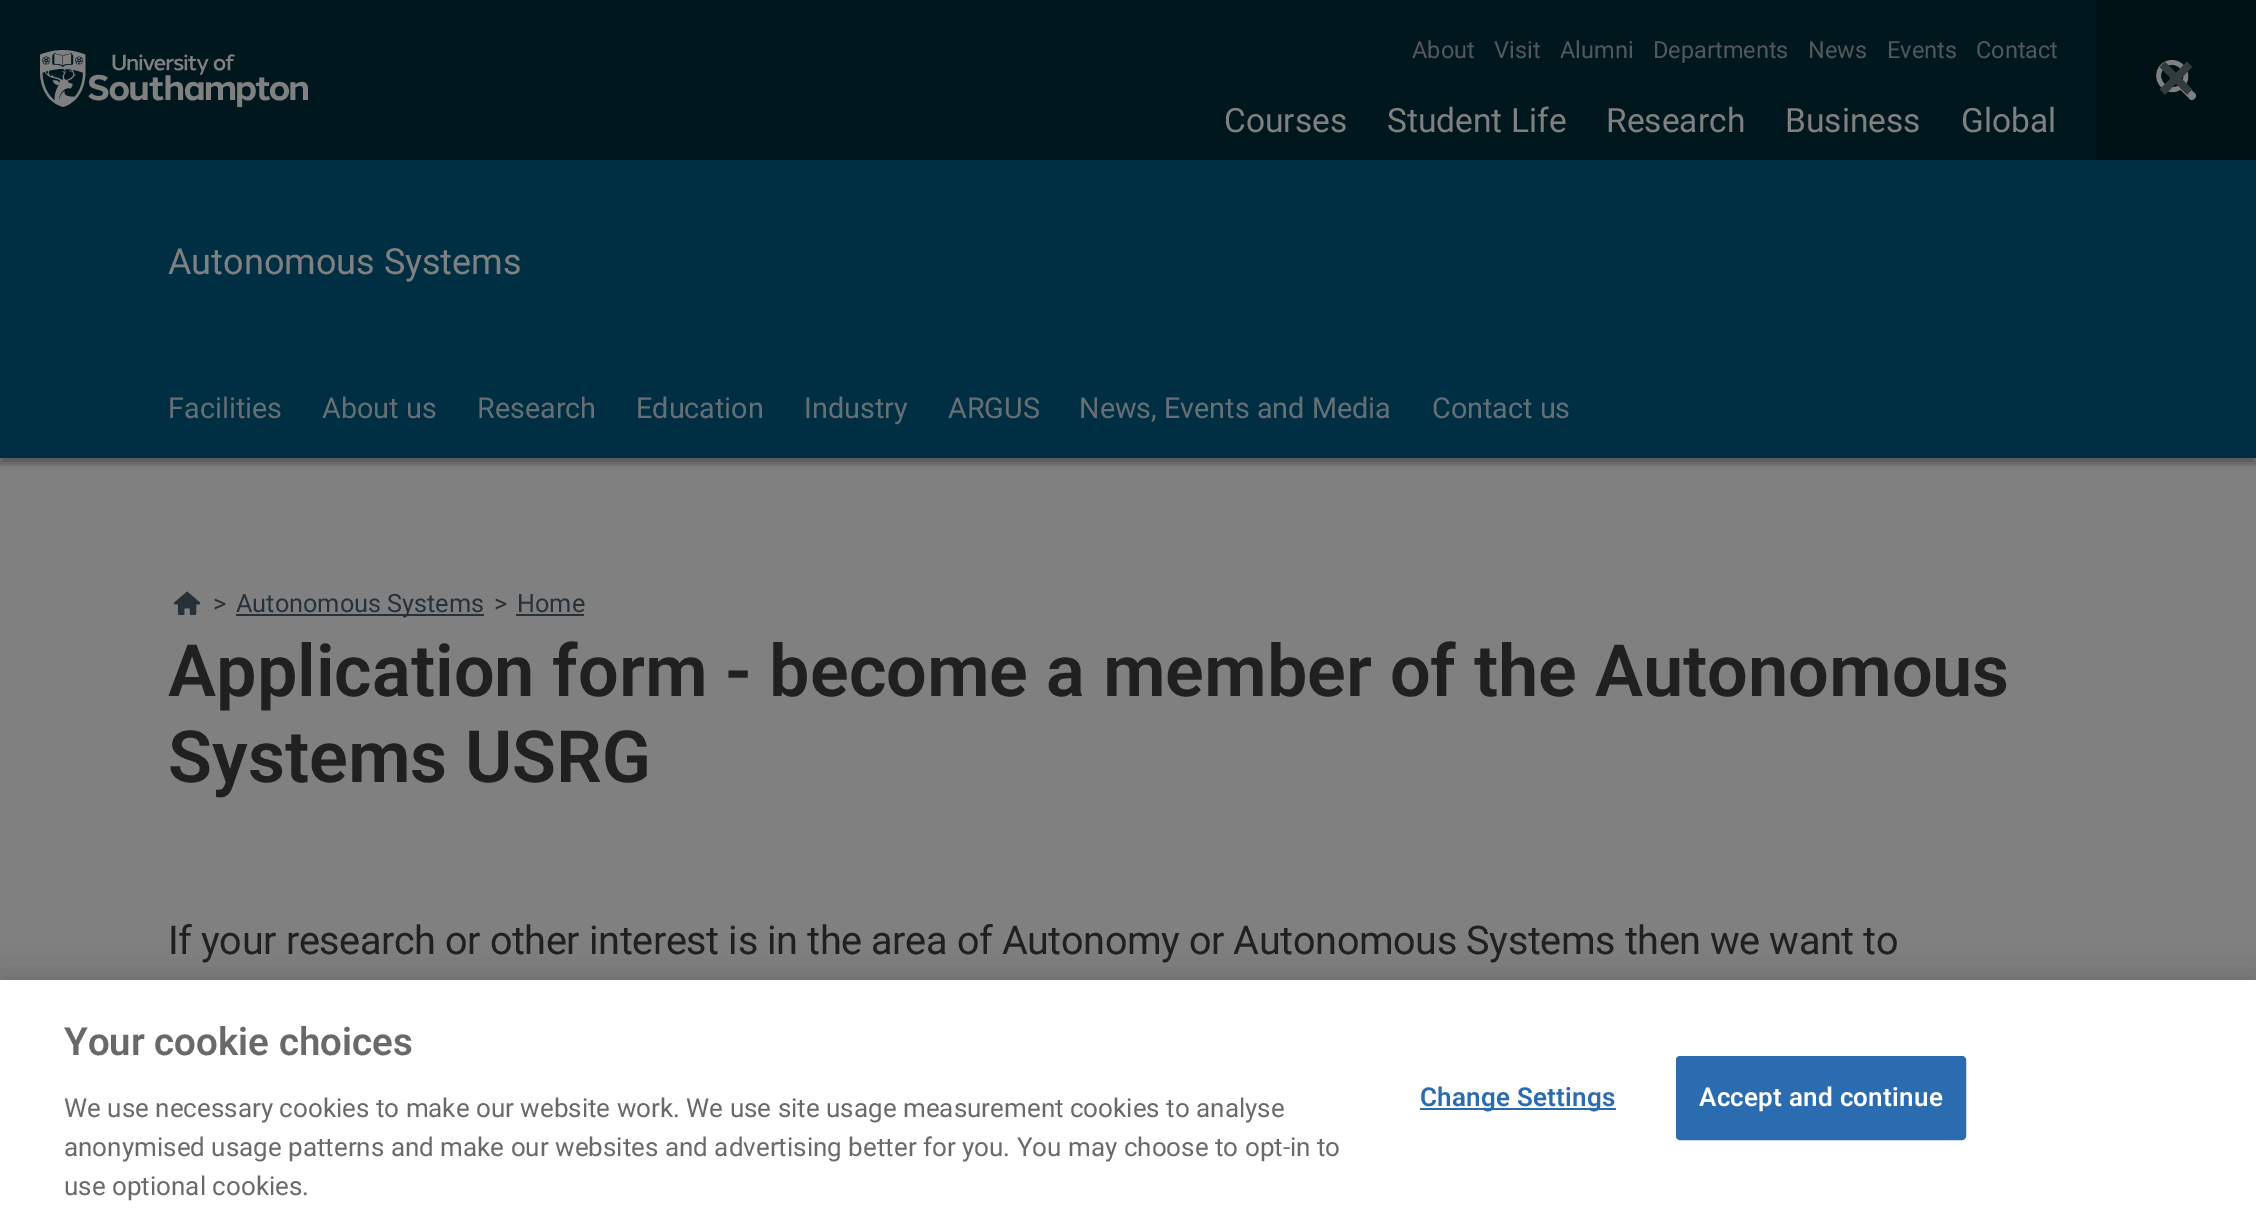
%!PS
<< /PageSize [2256 1225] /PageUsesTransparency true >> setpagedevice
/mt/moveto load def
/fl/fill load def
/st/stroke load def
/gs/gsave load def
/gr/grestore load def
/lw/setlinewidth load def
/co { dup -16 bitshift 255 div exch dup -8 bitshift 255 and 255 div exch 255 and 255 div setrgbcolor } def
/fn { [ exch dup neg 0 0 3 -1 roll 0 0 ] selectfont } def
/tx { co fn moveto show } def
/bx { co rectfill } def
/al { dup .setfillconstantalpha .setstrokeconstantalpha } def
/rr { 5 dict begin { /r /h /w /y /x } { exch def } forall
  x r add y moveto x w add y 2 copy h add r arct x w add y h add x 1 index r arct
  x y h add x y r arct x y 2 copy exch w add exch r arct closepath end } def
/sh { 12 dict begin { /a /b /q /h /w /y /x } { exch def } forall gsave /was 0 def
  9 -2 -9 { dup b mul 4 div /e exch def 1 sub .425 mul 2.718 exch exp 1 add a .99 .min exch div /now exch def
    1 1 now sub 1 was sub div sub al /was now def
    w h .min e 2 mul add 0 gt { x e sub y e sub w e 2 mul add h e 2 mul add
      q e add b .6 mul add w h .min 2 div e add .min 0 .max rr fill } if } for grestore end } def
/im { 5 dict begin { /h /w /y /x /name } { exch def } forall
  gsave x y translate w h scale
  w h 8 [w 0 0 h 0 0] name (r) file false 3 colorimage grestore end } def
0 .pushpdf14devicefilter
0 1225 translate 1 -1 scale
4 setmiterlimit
0 0 2256 1225 16#00171E bx
(media/1.raw) 40 50 268 58 im
2096 0 160 160 16#001116 bx
(media/2.raw) 2156 60 40 40 im
0 160 2256 202 16#002E43 bx
0 458 2256 522 16#808080 bx
16#000000 co
0 368 2256 96 0 3 .3 sh
0 362 2256 96 16#002E43 bx
(media/3.raw) 174 591 27 24 im
236 614 248 2 16#283137 bx
516 614 68 2 16#283137 bx
16#000000 co
0 980 2256 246 0 18 .2 sh
0 980 2256 245 16#FFFFFF bx
1420 1108 196 2 16#2B6CB1 bx
1677 1057 288 82 3 rr gs fl gr
2 lw
st
(About) 1412 58 /Roboto-Regular 23.5 16#52585B tx
(Visit) 1494 58 /Roboto-Regular 23.5 16#52585B tx
(Alumni) 1560 58 /Roboto-Regular 23.5 16#52585B tx
(Departments) 1653 58 /Roboto-Regular 23.5 16#52585B tx
(News) 1808 58 /Roboto-Regular 23.5 16#52585B tx
(Events) 1887 58 /Roboto-Regular 23.5 16#52585B tx
(Contact) 1976 58 /Roboto-Regular 23.5 16#52585B tx
(Courses) 1224 132 /Roboto-Regular 33.5 16#808080 tx
(Student Life) 1387 132 /Roboto-Regular 33.5 16#808080 tx
(Research) 1606 132 /Roboto-Regular 33.5 16#808080 tx
(Business) 1785 132 /Roboto-Regular 33.5 16#808080 tx
(Global) 1961 132 /Roboto-Regular 33.5 16#808080 tx
(×) 2157 102 /Roboto-SemiBold 72 16#323C3F tx
(Autonomous Systems) 168 274 /Roboto-Regular 36 16#808080 tx
(Facilities) 168 418 /Roboto-Regular 28.75 16#666F74 tx
(About us) 322 418 /Roboto-Regular 28.75 16#666F74 tx
(Research) 477 418 /Roboto-Regular 28.75 16#666F74 tx
(Education) 636 418 /Roboto-Regular 28.75 16#666F74 tx
(Industry) 804 418 /Roboto-Regular 28.75 16#666F74 tx
(ARGUS) 948 418 /Roboto-Regular 28.75 16#666F74 tx
(News, Events and Media) 1079 418 /Roboto-Regular 28.75 16#666F74 tx
(Contact us) 1432 418 /Roboto-Regular 28.75 16#666F74 tx
(>) 213 612 /Roboto-Regular 25.25 16#283137 tx
(Autonomous Systems) 236 612 /Roboto-Regular 25.25 16#283137 tx
(>) 494 612 /Roboto-Regular 25.25 16#283137 tx
(Home) 517 612 /Roboto-Regular 25.25 16#283137 tx
(Application form - become a member of the Autonomous) 168 696 /Roboto-SemiBold 72 16#202020 tx
(Systems USRG) 168 782 /Roboto-SemiBold 72 16#202020 tx
/Roboto-Regular 39.6 fn
168 954 mt -.4 0 (If your research or other interest is in the area of Autonomy or Autonomous Systems then we want to) ashow
(Your cookie choices) 64 1055 /Roboto-SemiBold 38.5 16#696969 tx
(We use necessary cookies to make our website work. We use site usage measurement cookies to analyse) 64 1117 /Roboto-Regular 26 16#696969 tx
(anonymised usage patterns and make our websites and advertising better for you. You may choose to opt-in to) 64 1156 /Roboto-Regular 26 16#696969 tx
(use optional cookies.) 64 1195 /Roboto-Regular 26 16#696969 tx
/Roboto-SemiBold 26 fn
16#2B6CB1 co
1420 1106 mt .25 0 (Change Settings) ashow
16#FFFFFF co
1699 1106 mt .25 0 (Accept and continue) ashow
.poppdf14devicefilter showpage
